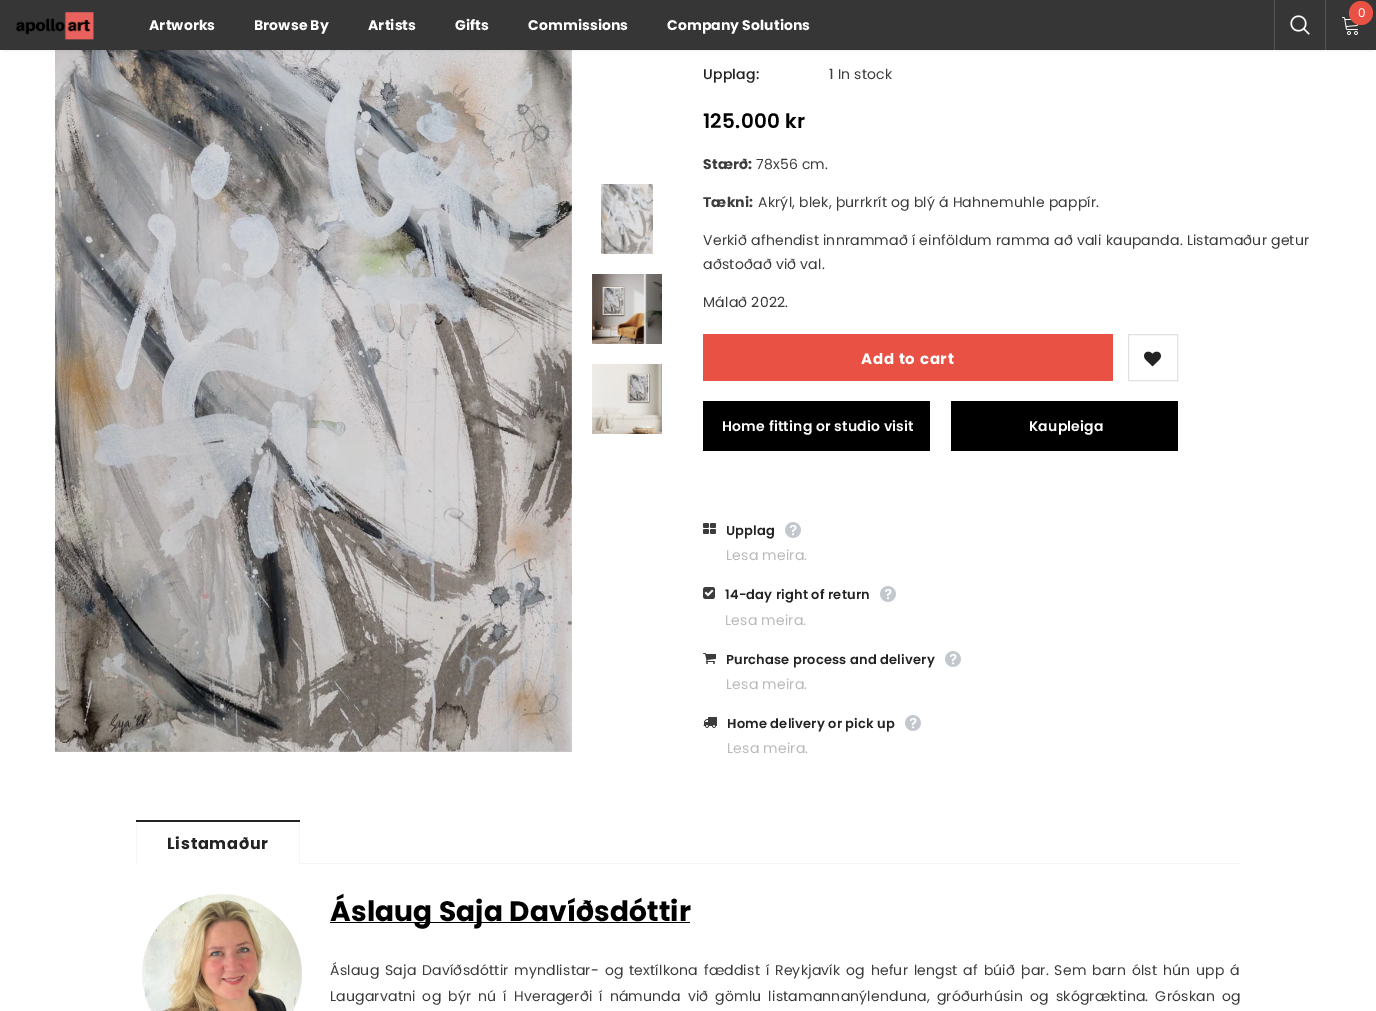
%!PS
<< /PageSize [1376 1011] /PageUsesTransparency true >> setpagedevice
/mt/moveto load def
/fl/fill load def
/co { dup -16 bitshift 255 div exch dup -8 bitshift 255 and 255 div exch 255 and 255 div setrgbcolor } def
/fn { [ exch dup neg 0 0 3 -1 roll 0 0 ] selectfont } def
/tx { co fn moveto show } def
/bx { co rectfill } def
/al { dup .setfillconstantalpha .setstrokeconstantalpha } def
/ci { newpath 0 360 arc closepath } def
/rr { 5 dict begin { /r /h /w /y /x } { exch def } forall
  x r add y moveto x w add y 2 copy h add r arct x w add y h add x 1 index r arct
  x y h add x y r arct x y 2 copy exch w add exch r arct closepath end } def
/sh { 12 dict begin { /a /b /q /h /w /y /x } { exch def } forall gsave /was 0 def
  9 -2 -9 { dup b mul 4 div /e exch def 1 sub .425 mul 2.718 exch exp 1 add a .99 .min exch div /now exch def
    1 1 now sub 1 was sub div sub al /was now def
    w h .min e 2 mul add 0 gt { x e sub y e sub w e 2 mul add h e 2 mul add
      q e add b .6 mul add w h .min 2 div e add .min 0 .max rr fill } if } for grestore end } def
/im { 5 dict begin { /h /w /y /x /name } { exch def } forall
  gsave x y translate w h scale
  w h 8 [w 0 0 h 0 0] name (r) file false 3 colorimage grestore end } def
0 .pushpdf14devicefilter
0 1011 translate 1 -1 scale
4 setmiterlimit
0 0 1376 1011 16#FFFFFF bx
(media/4.raw) 55 50 517 702 im
16#000000 co
3 6 1370 44 0 1.5 .1 sh
0 0 1376 50 16#363636 bx
(media/1.raw) 16 11 78 29 im
1274 0 1 50 16#545454 bx
(media/2.raw) 1290 15 20 20 im
1325 0 1 50 16#545454 bx
(media/3.raw) 1342 17 17 18 im
16#E95144 co
1361 13 12 ci fl
(media/5.raw) 601 184 52 70 im
(media/6.raw) 592 274 70 70 im
(media/7.raw) 592 364 70 70 im
703 334 410 47 16#E95144 bx
16#E1E1E1 co
1128.5 334.5 49 46 rectstroke
(media/8.raw) 1144 351 17 16 im
703 401 227 50 16#000000 bx
951 401 227 50 16#000000 bx
(media/9.raw) 703 523 13 11 im
(media/10.raw) 785 522 16 16 im
(media/11.raw) 703 587 12 12 im
(media/10.raw) 880 586 16 16 im
(media/12.raw) 703 653 13 11 im
(media/10.raw) 945 651 16 16 im
(media/13.raw) 703 717 14 11 im
(media/10.raw) 905 715 16 16 im
300 863 940 1 16#F6F6F6 bx
299 820 1 44 16#F6F6F6 bx
136 820 1 44 16#F6F6F6 bx
136 820 164 2 16#232323 bx
(media/14.raw) 142 894 160 117 im
330 922 360 1 16#000000 bx
/Poppins-Bold 14 fn
16#FFFFFF co
149 30 mt .1 0 (Artworks) ashow
254 30 mt .1 0 (Browse By) ashow
368 30 mt .1 0 (Artists) ashow
455 30 mt .1 0 (Gifts) ashow
528 30 mt .1 0 (Commissions) ashow
667 30 mt .1 0 (Company Solutions) ashow
(0) 1358 17 /Poppins-Regular 12 16#FFFFFF tx
/Poppins-Medium 14 fn
16#232323 co
703 79 mt .2 0 (Upplag:) ashow
/Poppins-Regular 14 fn
16#3C3C3C co
829 79 mt .2 0 (1 In stock) ashow
/Poppins-SemiBold 20 fn
16#000000 co
703 128 mt .2 0 (125.000 kr) ashow
/Poppins-Bold 14 fn
16#3C3C3C co
703 169 mt .2 0 (Stærð:) ashow
/Poppins-Regular 14 fn
756 169 mt .2 0 (78x56 cm.) ashow
/Poppins-Bold 14 fn
703 207 mt .2 0 (Tækni:) ashow
/Poppins-Regular 14 fn
758 207 mt .2 0 (Akrýl, blek, þurrkrít og blý á Hahnemuhle pappír.) ashow
703 245 mt .2 0 (Verkið afhendist innrammað í einföldum ramma að vali kaupanda. Listamaður getur) ashow
703 269 mt .2 0 (aðstoðað við val.) ashow
703 307 mt .2 0 (Málað 2022.) ashow
/Poppins-Bold 15 fn
16#FFFFFF co
861 364 mt .75 0 (Add to cart) ashow
/Poppins-SemiBold 14 fn
722 431 mt .2 0 (Home fitting or studio visit) ashow
1029 431 mt .2 0 (Kaupleiga) ashow
/Poppins-SemiBold 13 fn
16#232323 co
726 535 mt .2 0 (Upplag) ashow
/Poppins-Regular 14 fn
16#BABABA co
726 560 mt .2 0 (Lesa meira.) ashow
/Poppins-SemiBold 13 fn
16#232323 co
725 599 mt .2 0 (14-day right of return) ashow
/Poppins-Regular 14 fn
16#BABABA co
725 625 mt .2 0 (Lesa meira.) ashow
/Poppins-SemiBold 13 fn
16#232323 co
726 664 mt .2 0 (Purchase process and delivery) ashow
/Poppins-Regular 14 fn
16#BABABA co
726 689 mt .2 0 (Lesa meira.) ashow
/Poppins-SemiBold 13 fn
16#232323 co
727 728 mt .2 0 (Home delivery or pick up) ashow
/Poppins-Regular 14 fn
16#BABABA co
727 753 mt .2 0 (Lesa meira.) ashow
/Poppins-Bold 16 fn
16#232323 co
167 849 mt .75 0 (Listamaður) ashow
/Poppins-Bold 28 fn
16#000000 co
330 921 mt .2 0 (Áslaug Saja Davíðsdóttir) ashow
/Poppins-Regular 14 fn
16#3C3C3C co
330 975 mt 1.75 0 32 .2 0 (Áslaug Saja Davíðsdóttir myndlistar- og textílkona fæddist í Reykjavík og hefur lengst af búið þar. Sem barn ólst hún upp á) awidthshow
330 1001 mt 2.9 0 32 .2 0 (Laugarvatni og býr nú í Hveragerði í námunda við gömlu listamannanýlenduna, gróðurhúsin og skógræktina. Gróskan og) awidthshow
.poppdf14devicefilter showpage
